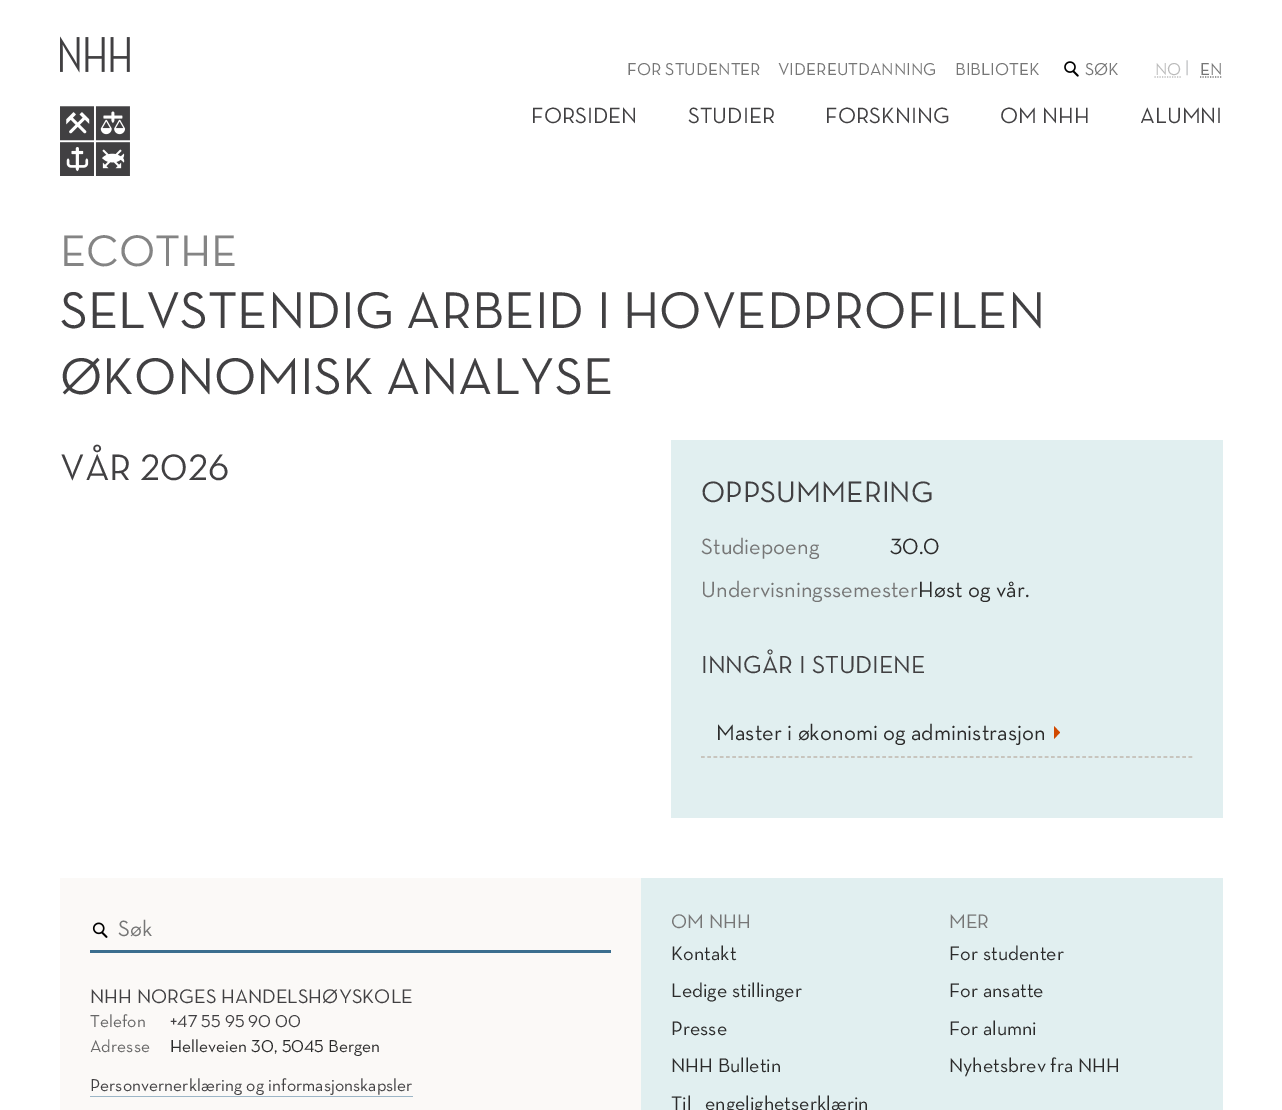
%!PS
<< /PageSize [1282 1110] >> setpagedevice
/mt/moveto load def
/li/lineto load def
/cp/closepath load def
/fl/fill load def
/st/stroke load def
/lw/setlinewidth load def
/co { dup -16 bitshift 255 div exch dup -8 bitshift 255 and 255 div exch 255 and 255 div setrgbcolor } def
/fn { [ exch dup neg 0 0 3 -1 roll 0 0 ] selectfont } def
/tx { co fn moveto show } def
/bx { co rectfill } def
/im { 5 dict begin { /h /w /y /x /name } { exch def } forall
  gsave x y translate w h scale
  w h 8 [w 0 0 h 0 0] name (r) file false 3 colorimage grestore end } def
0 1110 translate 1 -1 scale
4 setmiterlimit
0 0 1282 1110 16#FFFFFF bx
(media/1.raw) 60 36 70 140 im
(media/2.raw) 1064 61 15 16 im
16#BBBBBB co
1.2 lw
[1.25 1.25] 0 setdash
1154.5 77 mt 1181.5 77 li st
16#767676 co
1200 77 mt 1222.5 77 li st
671 440 552 378 16#E1EFF0 bx
16#BFB6AD co
[3.75 2.5] 0 setdash
701 757 mt 1192.5 757 li st
16#D14900 co
1054 739 mt 1054 726 li 1060 732.5 li cp fl
60 878 581 232 16#FBF9F7 bx
(media/3.raw) 92 922 16 16 im
90 950 521 3 16#3B6E8F bx
90 1096 323 1 16#9CB6C7 bx
641 878 582 232 16#E1EFF0 bx
(FOR STUDENTER) 627 75 /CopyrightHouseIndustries-Regular 17.5 16#767676 tx
(VIDEREUTDANNING) 778 75 /CopyrightHouseIndustries-Regular 17.5 16#767676 tx
(BIBLIOTEK) 955 75 /CopyrightHouseIndustries-Regular 17.5 16#767676 tx
(SØK) 1085 75 /CopyrightHouseIndustries-Regular 17.5 16#767676 tx
(NO) 1155 75 /CopyrightHouseIndustries-Regular 17.5 16#BBBBBB tx
(|) 1185 73 /CopyrightHouseIndustries-Regular 17.5 16#BEC0C2 tx
(EN) 1200 75 /CopyrightHouseIndustries-Regular 17.5 16#767676 tx
(FORSIDEN) 531 123 /CopyrightHouseIndustries-Regular 22.5 16#414042 tx
(STUDIER) 688 123 /CopyrightHouseIndustries-Regular 22.5 16#414042 tx
(FORSKNING) 825 123 /CopyrightHouseIndustries-Regular 22.5 16#414042 tx
(OM NHH) 1000 123 /CopyrightHouseIndustries-Regular 22.5 16#414042 tx
(ALUMNI) 1140 123 /CopyrightHouseIndustries-Regular 22.5 16#414042 tx
(ECOTHE) 60 266 /CopyrightHouseIndustries-Regular 45 16#848484 tx
(SELVSTENDIG ARBEID I HOVEDPROFILEN) 60 328 /CopyrightHouseIndustries-Regular 52.5 16#414042 tx
(ØKONOMISK ANALYSE) 60 394 /CopyrightHouseIndustries-Regular 52.5 16#414042 tx
(VÅR 2026) 60 480 /CopyrightHouseIndustries-Regular 37.5 16#414042 tx
(OPPSUMMERING) 701 502 /CopyrightHouseIndustries-Regular 30 16#414042 tx
(Studiepoeng) 701 554 /CopyrightHouseIndustries-Regular 22.5 16#767676 tx
(30.0) 890 554 /CopyrightHouseIndustries-Regular 22.5 16#2B2B2B tx
(Undervisningssemester) 701 597 /CopyrightHouseIndustries-Regular 22.5 16#767676 tx
(Høst og vår.) 918 597 /CopyrightHouseIndustries-Regular 22.5 16#2B2B2B tx
(INNGÅR I STUDIENE) 701 673 /CopyrightHouseIndustries-Regular 25 16#414042 tx
(Master i økonomi og administrasjon) 716 740 /CopyrightHouseIndustries-Regular 22.5 16#2B2B2B tx
(Søk) 118 936 /CopyrightHouseIndustries-Regular 22.5 16#767676 tx
(NHH NORGES HANDELSHØYSKOLE) 90 1003 /CopyrightHouseIndustries-Regular 20 16#414042 tx
(Telefon) 90 1027 /CopyrightHouseIndustries-Regular 17.5 16#676767 tx
(+47 55 95 90 00) 170 1027 /CopyrightHouseIndustries-Regular 17.5 16#414042 tx
(Adresse) 90 1052 /CopyrightHouseIndustries-Regular 17.5 16#676767 tx
(Helleveien 30, 5045 Bergen) 170 1052 /CopyrightHouseIndustries-Regular 17.5 16#2B2B2B tx
(Personvernerklæring og informasjonskapsler) 90 1091 /CopyrightHouseIndustries-Regular 17.5 16#414042 tx
(OM NHH) 671 928 /CopyrightHouseIndustries-Regular 20 16#767676 tx
(Kontakt) 671 960 /CopyrightHouseIndustries-Regular 20 16#2B2B2B tx
(Ledige stillinger) 671 997 /CopyrightHouseIndustries-Regular 20 16#2B2B2B tx
(Presse) 671 1035 /CopyrightHouseIndustries-Regular 20 16#2B2B2B tx
(NHH Bulletin) 671 1072 /CopyrightHouseIndustries-Regular 20 16#2B2B2B tx
(Til) 671 1110 /CopyrightHouseIndustries-Regular 20 16#2B2B2B tx
(engelighetserklærin) 705 1110 /CopyrightHouseIndustries-Regular 20 16#2B2B2B tx
(MER) 949 928 /CopyrightHouseIndustries-Regular 20 16#767676 tx
(For studenter) 949 960 /CopyrightHouseIndustries-Regular 20 16#2B2B2B tx
(For ansatte) 949 997 /CopyrightHouseIndustries-Regular 20 16#2B2B2B tx
(For alumni) 949 1035 /CopyrightHouseIndustries-Regular 20 16#2B2B2B tx
(Nyhetsbrev fra NHH) 949 1072 /CopyrightHouseIndustries-Regular 20 16#2B2B2B tx
showpage
